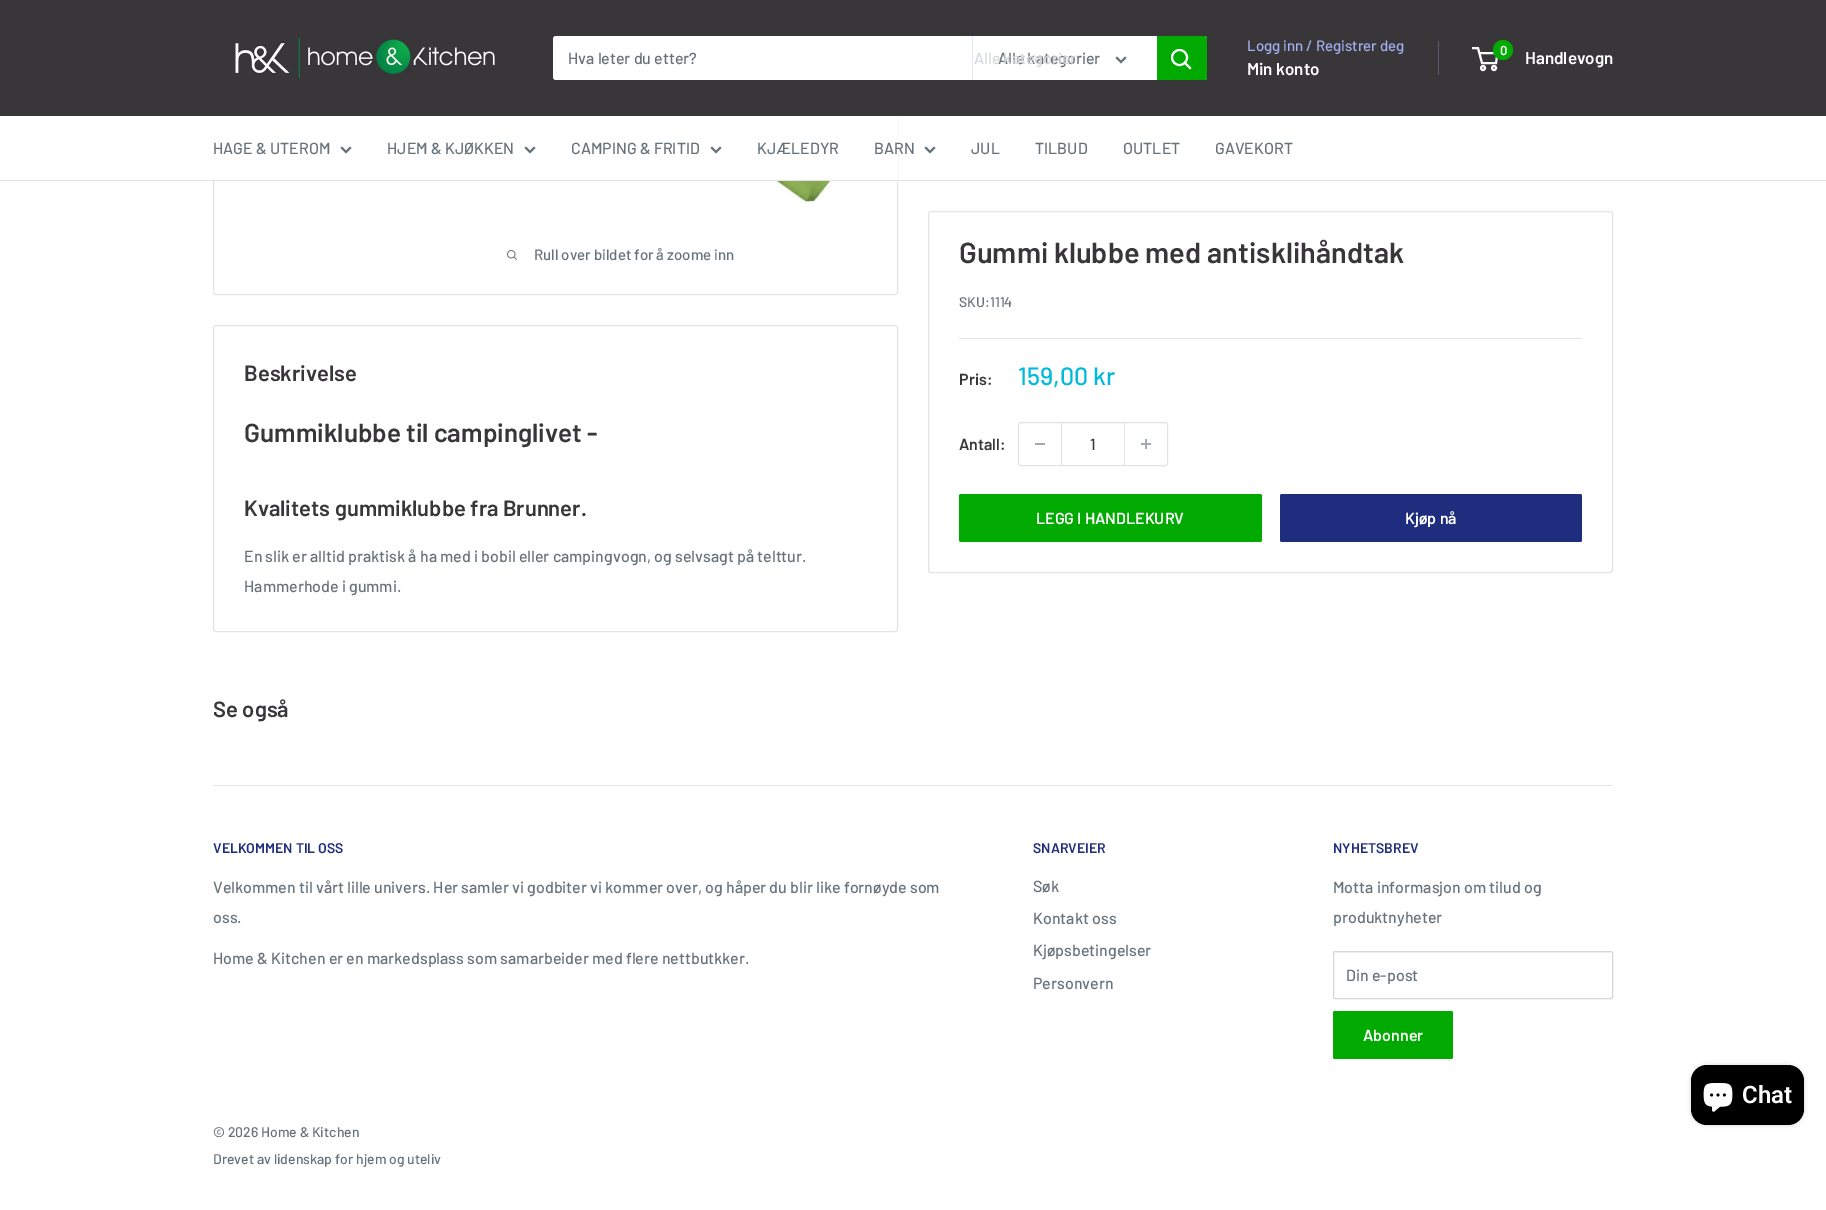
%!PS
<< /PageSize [1826 1210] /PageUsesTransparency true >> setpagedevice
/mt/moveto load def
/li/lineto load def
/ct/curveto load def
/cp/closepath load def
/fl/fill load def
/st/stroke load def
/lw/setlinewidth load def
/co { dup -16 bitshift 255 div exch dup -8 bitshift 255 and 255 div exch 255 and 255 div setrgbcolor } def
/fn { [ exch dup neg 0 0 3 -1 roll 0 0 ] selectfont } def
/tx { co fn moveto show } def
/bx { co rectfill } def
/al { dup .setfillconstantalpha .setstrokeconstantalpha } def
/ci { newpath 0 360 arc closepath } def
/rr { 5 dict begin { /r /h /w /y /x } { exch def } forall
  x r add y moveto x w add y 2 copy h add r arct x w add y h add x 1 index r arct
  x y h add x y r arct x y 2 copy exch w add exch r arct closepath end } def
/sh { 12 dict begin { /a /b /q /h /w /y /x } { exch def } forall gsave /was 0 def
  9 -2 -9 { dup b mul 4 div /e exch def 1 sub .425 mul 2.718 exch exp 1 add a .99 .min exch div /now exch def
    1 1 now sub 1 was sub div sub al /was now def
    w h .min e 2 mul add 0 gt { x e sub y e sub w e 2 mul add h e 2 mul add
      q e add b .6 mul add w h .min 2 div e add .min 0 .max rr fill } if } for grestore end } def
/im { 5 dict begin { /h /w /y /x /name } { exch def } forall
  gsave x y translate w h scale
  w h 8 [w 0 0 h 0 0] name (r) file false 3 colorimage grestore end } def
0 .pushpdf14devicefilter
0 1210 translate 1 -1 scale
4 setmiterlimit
0 0 1826 1210 16#FFFFFF bx
16#E1E3E4 co
213.5 -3.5 684 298 2.5 rr st
0 0 1826 116 16#383639 bx
(media/1.raw) 235 38 261 40 im
16#FFFFFF co
553 36 654 44 3 rr fl
972 36 1 44 16#E3E7FA bx
16#677279 co
2 lw
2 setlinecap
1125 58 mt 1121 62 li 1117 58 li st
16#00AA00 co
1157 36 mt 1204 36 li 1205.5 36 1207 37.5 1207 39 ct 1207 77 li 1207 78.5 1205.5 80 1204 80 ct 1157 80 li cp fl
16#FFFFFF co
1190 68 mt 1185 63 li st
0 setlinecap
1179.5 57.5 7.5 ci st
1438 41 1 34 16#585A70 bx
16#FFFFFF co
1483 68 2 ci st
1494 68 2 ci st
1479.5 53 mt 1497.5 53 li 1496 63 li 1482 63 li 1478 48 li 1472 48 li st
16#00AA00 co
1503 50 10 ci fl
213 116 685 64 16#FFFFFF bx
0 180 1826 1 16#E1E3E4 bx
16#677279 co
2 setlinecap
350 148 mt 346 152 li 342 148 li st
534 148 mt 530 152 li 526 148 li st
720 148 mt 716 152 li 712 148 li st
934 148 mt 930 152 li 926 148 li st
(media/2.raw) 413 181 431 22 im
(media/3.raw) 507 250 10 10 im
16#E1E3E4 co
1 lw
0 setlinecap
928.5 211.5 684 361 2.5 rr st
959 338 623 1 16#E1E3E4 bx
1018.5 422.5 149 43 2.5 rr st
1035 443 10 2 16#A4AAAF bx
1062 423 62 1 16#F3F4F4 bx
1124 423 1 42 16#E1E3E4 bx
1061 423 1 42 16#E1E3E4 bx
(media/4.raw) 1141 439 10 10 im
16#00AA00 co
959 494 303 48 2 rr fl
16#1E2D7D co
1280 494 302 48 2 rr fl
16#E1E3E4 co
213.5 325.5 684 306 2.5 rr st
213 785 1400 1 16#E1E3E4 bx
16#F8F8F8 co
1335 953 mt 1611 953 li 1612 953 1612 953 1612 954 ct 1612 953 1612 952 1611 952 ct 1335 952 li 1334 952 li 1334 954 li 1334 953 1334 953 1335 953 ct cp fl
16#D4D6D8 co
1333.5 951.5 279 47 1.5 rr st
16#00AA00 co
1333 1011 120 48 2 rr fl
16#000000 co
1691 1065 113 60 16 2.5 .15 sh
1691 1065 113 60 16 rr fl
(media/5.raw) 1703 1083 30 29 im
(Hva leter du etter?) 568 64 /Barlow-Medium 16 16#677279 tx
(Alle kategorier) 998 64 /Barlow-Medium 16 16#677279 tx
(Alle kategorier) 974 64 /Barlow-Medium 16 16#D5D8DA tx
(Logg inn / Registrer deg) 1247 51 /Barlow-Medium 15 16#A3AFEF tx
(Min konto) 1247 75 /Barlow-SemiBold 17 16#FFFFFF tx
(0) 1500 55 /Barlow-SemiBold 13 16#FFFFFF tx
(Handlevogn) 1525 64 /Barlow-SemiBold 17 16#FFFFFF tx
(HAGE & UTEROM) 213 154 /Barlow-Medium 16 16#677279 tx
(HJEM & KJØKKEN) 387 154 /Barlow-Medium 16 16#677279 tx
(CAMPING & FRITID) 571 154 /Barlow-Medium 16 16#677279 tx
(KJÆLEDYR) 757 154 /Barlow-Medium 16 16#677279 tx
(BARN) 874 154 /Barlow-Medium 16 16#677279 tx
(JUL) 971 154 /Barlow-Medium 16 16#677279 tx
(TILBUD) 1035 154 /Barlow-Medium 16 16#677279 tx
(OUTLET) 1123 154 /Barlow-Medium 16 16#677279 tx
(GAVEKORT) 1215 154 /Barlow-Medium 16 16#677279 tx
(Rull over bildet for å zoome inn) 534 260 /Barlow-Medium 15 16#677279 tx
(Gummi klubbe med antisklihåndtak) 959 263 /Barlow-SemiBold 29 16#383639 tx
(SKU:1114) 959 307 /Barlow-Medium 14 16#677279 tx
(Pris:) 959 385 /Barlow-SemiBold 16 16#383639 tx
(159,00 kr) 1018 385 /Barlow-Medium 25 16#00BADB tx
(Antall:) 959 450 /Barlow-SemiBold 16 16#383639 tx
(1) 1090 450 /Barlow-Medium 16 16#383639 tx
(LEGG I HANDLEKURV) 1036 524 /Barlow-SemiBold 16 16#FFFFFF tx
(Kjøp nå) 1405 524 /Barlow-SemiBold 16 16#FFFFFF tx
(Beskrivelse) 244 381 /Barlow-SemiBold 22 16#383639 tx
(Gummiklubbe til campinglivet -) 244 442 /Barlow-SemiBold 26 16#383639 tx
(Kvalitets gummiklubbe fra Brunner.) 244 516 /Barlow-SemiBold 22 16#383639 tx
(En slik er alltid praktisk å ha med i bobil eller campingvogn, og selvsagt på telttur.) 244 562 /Barlow-Medium 16 16#677279 tx
(Hammerhode i gummi.) 244 592 /Barlow-Medium 16 16#677279 tx
(Se også) 213 717 /Barlow-SemiBold 22 16#383639 tx
(VELKOMMEN TIL OSS) 213 853 /Barlow-SemiBold 14 16#1E2D7D tx
(Velkommen til vårt lille univers. Her samler vi godbiter vi kommer over, og håper du blir like fornøyde som) 213 893 /Barlow-Medium 16 16#677279 tx
(oss.) 213 923 /Barlow-Medium 16 16#677279 tx
(Home & Kitchen er en markedsplass som samarbeider med flere nettbutkker.) 213 964 /Barlow-Medium 16 16#677279 tx
(SNARVEIER) 1033 853 /Barlow-SemiBold 14 16#1E2D7D tx
(Søk) 1033 892 /Barlow-Medium 16 16#677279 tx
(Kontakt oss) 1033 924 /Barlow-Medium 16 16#677279 tx
(Kjøpsbetingelser) 1033 956 /Barlow-Medium 16 16#677279 tx
(Personvern) 1033 989 /Barlow-Medium 16 16#677279 tx
(NYHETSBREV) 1333 853 /Barlow-SemiBold 14 16#1E2D7D tx
(Motta informasjon om tilud og) 1333 893 /Barlow-Medium 16 16#677279 tx
(produktnyheter) 1333 923 /Barlow-Medium 16 16#677279 tx
(Din e-post) 1346 981 /Barlow-Medium 16 16#677279 tx
(Abonner) 1363 1041 /Barlow-SemiBold 16 16#FFFFFF tx
(© 2026 Home & Kitchen) 213 1137 /Barlow-Medium 14 16#677279 tx
(Drevet av lidenskap for hjem og uteliv) 213 1164 /Barlow-Medium 14 16#677279 tx
(Chat) 1742 1103 /Roboto-SemiBold 24 16#FFFFFF tx
.poppdf14devicefilter showpage
